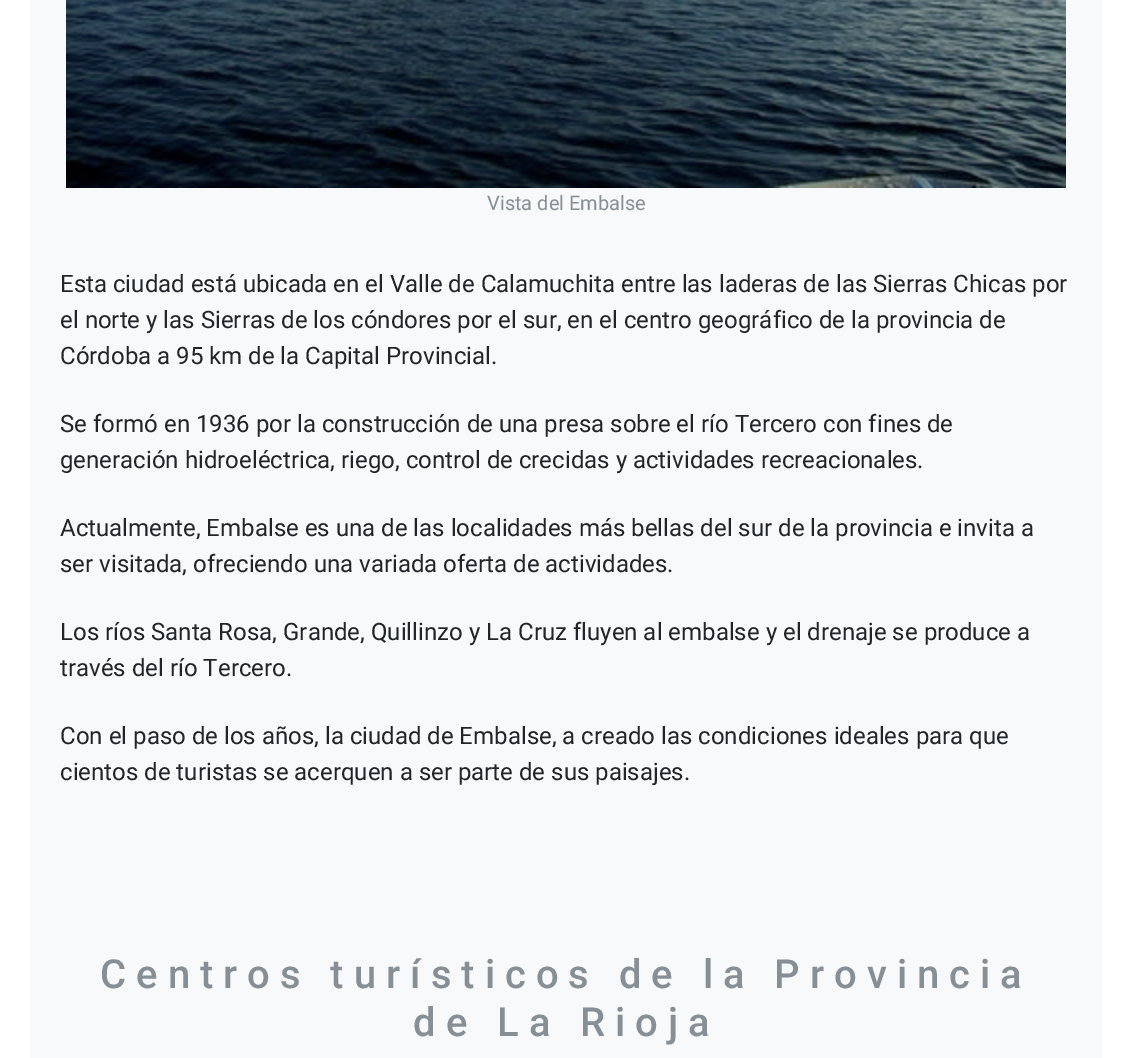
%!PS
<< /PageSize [1132 1058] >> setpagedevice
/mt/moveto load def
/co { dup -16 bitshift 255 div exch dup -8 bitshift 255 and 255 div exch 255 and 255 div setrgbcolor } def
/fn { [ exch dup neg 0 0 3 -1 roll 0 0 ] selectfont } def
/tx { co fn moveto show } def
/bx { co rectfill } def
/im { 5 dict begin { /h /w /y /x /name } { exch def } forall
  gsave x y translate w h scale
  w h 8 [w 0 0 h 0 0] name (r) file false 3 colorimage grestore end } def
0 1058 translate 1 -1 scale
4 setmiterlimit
0 0 1132 1058 16#FFFFFF bx
30 0 1072 1058 16#F8F9FA bx
(media/1.raw) 66 0 1000 188 im
(Vista del Embalse) 487 210 /Roboto-Regular 20 16#868E96 tx
(Esta ciudad está ubicada en el Valle de Calamuchita entre las laderas de las Sierras Chicas por) 60 292 /Roboto-Regular 24 16#212529 tx
(el norte y las Sierras de los cóndores por el sur, en el centro geográfico de la provincia de) 60 328 /Roboto-Regular 24 16#212529 tx
(Córdoba a 95 km de la Capital Provincial.) 60 364 /Roboto-Regular 24 16#212529 tx
(Se formó en 1936 por la construcción de una presa sobre el río Tercero con fines de) 60 432 /Roboto-Regular 24 16#212529 tx
(generación hidroeléctrica, riego, control de crecidas y actividades recreacionales.) 60 468 /Roboto-Regular 24 16#212529 tx
(Actualmente, Embalse es una de las localidades más bellas del sur de la provincia e invita a) 60 536 /Roboto-Regular 24 16#212529 tx
(ser visitada, ofreciendo una variada oferta de actividades.) 60 572 /Roboto-Regular 24 16#212529 tx
(Los ríos Santa Rosa, Grande, Quillinzo y La Cruz fluyen al embalse y el drenaje se produce a) 60 640 /Roboto-Regular 24 16#212529 tx
(través del río Tercero.) 60 676 /Roboto-Regular 24 16#212529 tx
(Con el paso de los años, la ciudad de Embalse, a creado las condiciones ideales para que) 60 744 /Roboto-Regular 24 16#212529 tx
(cientos de turistas se acerquen a ser parte de sus paisajes.) 60 780 /Roboto-Regular 24 16#212529 tx
/Roboto-Medium 40 fn
16#868E96 co
100 988 mt 10 0 (Centros turísticos de la Provincia) ashow
413 1036 mt 10 0 (de La Rioja) ashow
showpage
